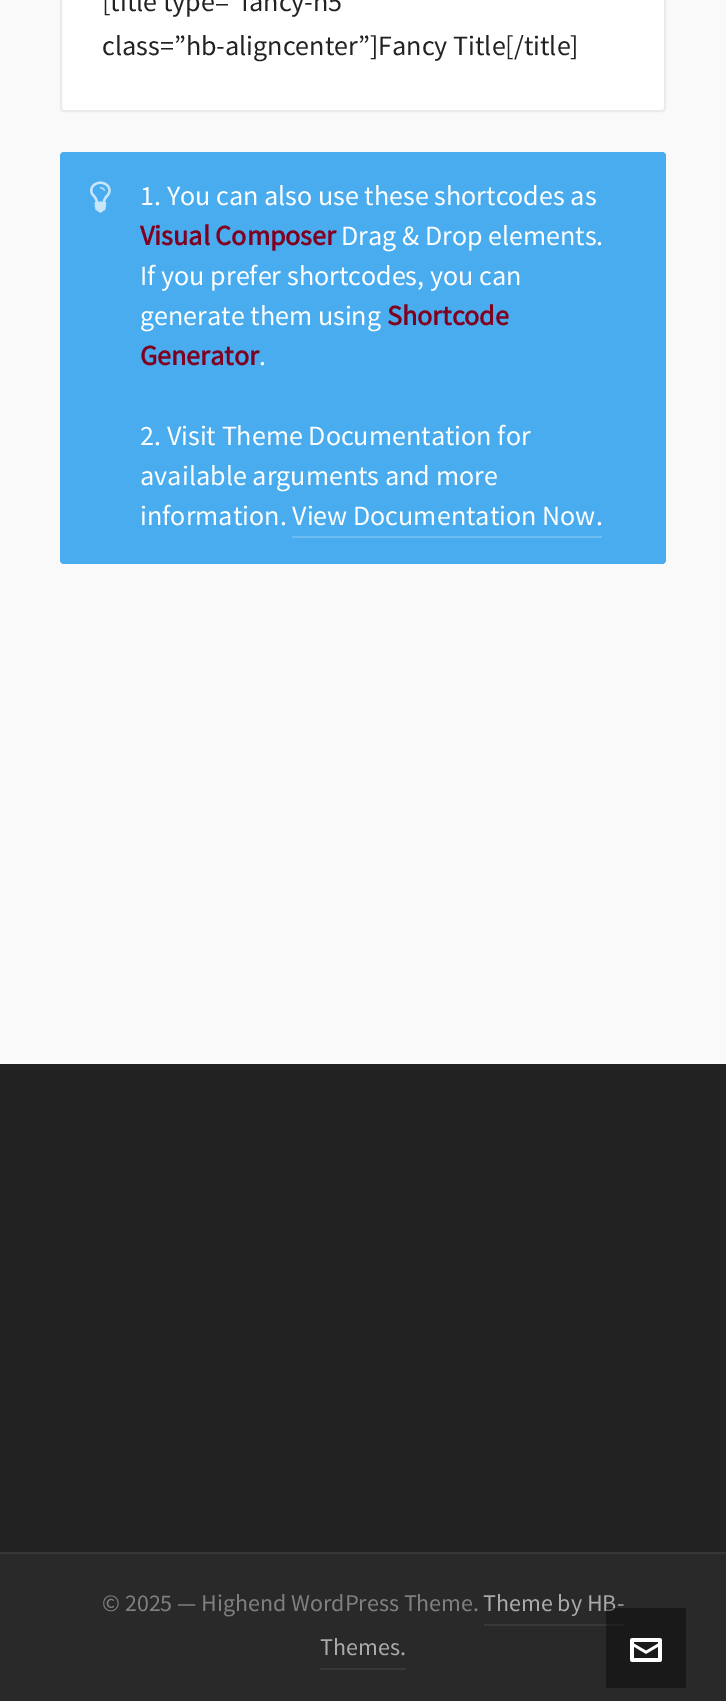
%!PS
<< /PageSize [726 1701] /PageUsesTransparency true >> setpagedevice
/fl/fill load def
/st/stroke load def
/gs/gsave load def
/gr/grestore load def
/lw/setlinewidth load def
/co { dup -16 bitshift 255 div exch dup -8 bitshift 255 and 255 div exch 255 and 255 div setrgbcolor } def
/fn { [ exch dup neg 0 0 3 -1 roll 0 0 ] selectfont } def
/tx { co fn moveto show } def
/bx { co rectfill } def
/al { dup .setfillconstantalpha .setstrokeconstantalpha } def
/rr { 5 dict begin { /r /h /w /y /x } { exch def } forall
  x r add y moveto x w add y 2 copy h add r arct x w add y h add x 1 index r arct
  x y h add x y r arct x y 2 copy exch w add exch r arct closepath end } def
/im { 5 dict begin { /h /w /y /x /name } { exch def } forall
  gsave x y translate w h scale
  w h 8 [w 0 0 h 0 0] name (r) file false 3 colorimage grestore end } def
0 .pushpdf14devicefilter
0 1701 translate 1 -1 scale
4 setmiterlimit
0 0 726 1701 16#F9F9F9 bx
16#FFFFFF co
61 -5 604 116 3 rr gs fl gr
16#EBEBEB co
2 lw
st
16#48ACEF co
60 152 606 412 4 rr fl
(media/1.raw) 90 181 21 32 im
292 536 310 2 16#6DBDF2 bx
0 1064 726 488 16#222222 bx
0 1554 726 147 16#292929 bx
0 1552 726 2 16#363636 bx
484 1624 140 2 16#383838 bx
320 1668 86 2 16#383838 bx
([title type=”fancy-h5) 102 11 /SourceSansPro-Regular 28 16#222222 tx
(class=”hb-aligncenter”]Fancy Title[/title]) 102 55 /SourceSansPro-Regular 28 16#222222 tx
(1. You can also use these shortcodes as) 140 205 /SourceSansPro-Regular 28 16#FFFFFF tx
(Visual Composer) 140 245 /SourceSansPro-Bold 28 16#800020 tx
(Drag & Drop elements.) 341 245 /SourceSansPro-Regular 28 16#FFFFFF tx
(If you prefer shortcodes, you can) 140 285 /SourceSansPro-Regular 28 16#FFFFFF tx
(generate them using) 140 325 /SourceSansPro-Regular 28 16#FFFFFF tx
(Shortcode) 387 325 /SourceSansPro-Bold 28 16#800020 tx
(Generator) 140 365 /SourceSansPro-Bold 28 16#800020 tx
(.) 259 365 /SourceSansPro-Regular 28 16#FFFFFF tx
(2. Visit Theme Documentation for) 140 445 /SourceSansPro-Regular 28 16#FFFFFF tx
(available arguments and more) 140 485 /SourceSansPro-Regular 28 16#FFFFFF tx
(information. View Documentation Now.) 140 525 /SourceSansPro-Regular 28 16#FFFFFF tx
(© 2025 — Highend WordPress Theme.) 102 1611 /SourceSansPro-Regular 24 16#7F7F7F tx
(Theme by HB-) 483 1611 /SourceSansPro-Regular 24 16#AAAAAA tx
(Themes.) 320 1655 /SourceSansPro-Regular 24 16#AAAAAA tx
0.4 al
606 1608 80 80 16#000000 bx
1 al
(media/2.raw) 630 1638 32 24 im
.poppdf14devicefilter showpage
